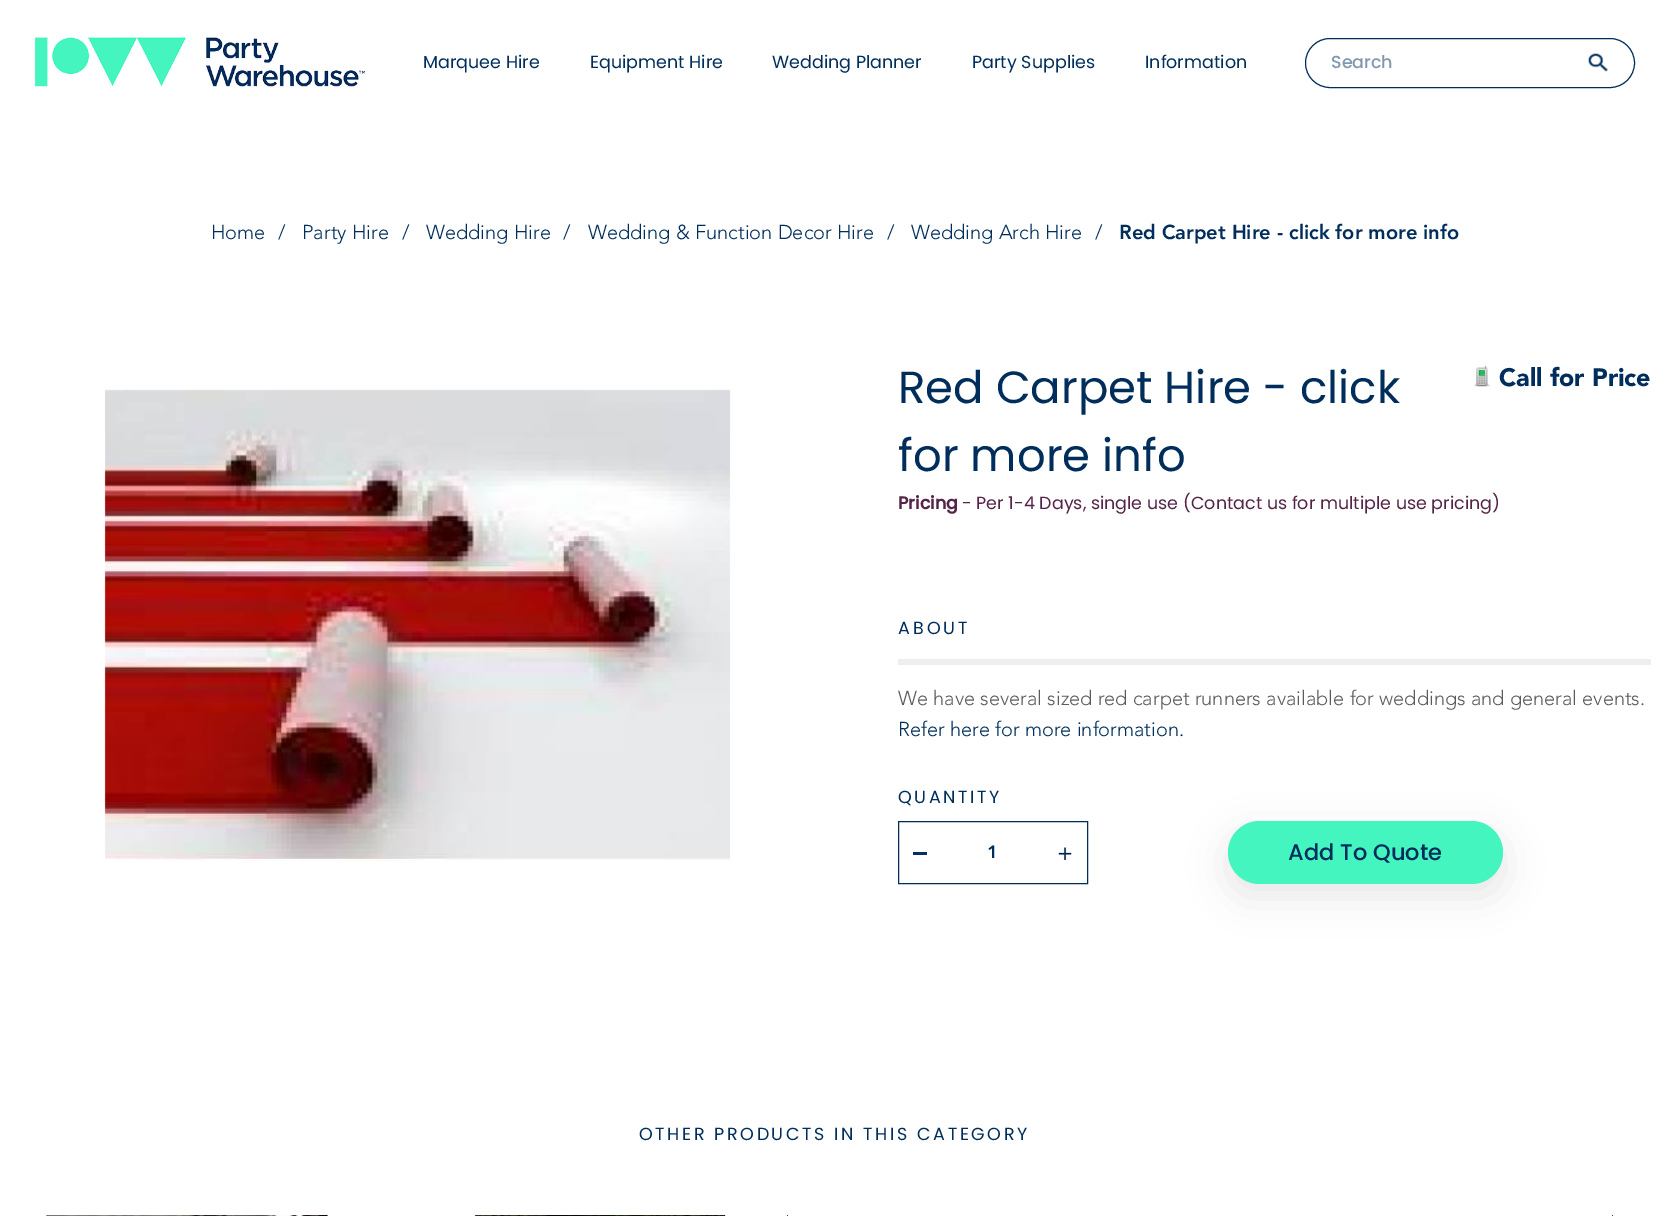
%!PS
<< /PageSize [1669 1216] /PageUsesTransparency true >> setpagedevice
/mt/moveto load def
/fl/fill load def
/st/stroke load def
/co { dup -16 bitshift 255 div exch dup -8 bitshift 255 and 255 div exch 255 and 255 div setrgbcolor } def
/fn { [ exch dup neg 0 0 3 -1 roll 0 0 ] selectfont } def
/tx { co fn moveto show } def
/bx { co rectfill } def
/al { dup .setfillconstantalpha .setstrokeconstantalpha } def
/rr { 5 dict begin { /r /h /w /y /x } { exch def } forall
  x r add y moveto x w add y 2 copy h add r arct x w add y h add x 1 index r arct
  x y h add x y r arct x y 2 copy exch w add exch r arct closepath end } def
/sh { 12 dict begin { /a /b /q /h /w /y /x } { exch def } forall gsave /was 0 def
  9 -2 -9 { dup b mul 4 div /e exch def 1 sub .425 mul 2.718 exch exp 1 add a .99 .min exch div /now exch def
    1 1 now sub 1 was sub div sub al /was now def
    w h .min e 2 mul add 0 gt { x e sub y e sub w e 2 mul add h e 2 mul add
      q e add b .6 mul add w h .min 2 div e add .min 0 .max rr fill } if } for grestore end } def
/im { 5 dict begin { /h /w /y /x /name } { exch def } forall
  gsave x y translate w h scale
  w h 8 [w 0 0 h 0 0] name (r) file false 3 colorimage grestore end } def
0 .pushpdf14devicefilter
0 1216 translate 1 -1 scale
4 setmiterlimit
0 0 1669 1216 16#FFFFFF bx
(media/1.raw) 35 37 330 50 im
16#002E5C co
1305.5 38.5 329 49 24.5 rr st
(media/2.raw) 1588 53 20 19 im
(media/3.raw) 104 389 627 473 im
(media/4.raw) 1474 366 16 21 im
898 659 753 6 16#EEEEEE bx
16#002E5C co
898.5 821.5 189 62 rectstroke
913 852 14 3 16#05325F bx
(media/5.raw) 1058 847 14 13 im
16#000000 co
1228 834 275 62 31 19 .1 sh
16#44F5BF co
1228 821 275 63 31.5 rr fl
(media/6.raw) 0 1215 375 1 im
787 1215 1 1 16#000000 bx
(media/7.raw) 413 1215 375 1 im
1612 1215 1 1 16#000000 bx
(media/8.raw) 1238 1215 375 1 im
(Marquee Hire) 423 68 /Poppins-Regular 17.5 16#002E5C tx
(Equipment Hire) 590 68 /Poppins-Regular 17.5 16#002E5C tx
(Wedding Planner) 772 68 /Poppins-Regular 17.5 16#002E5C tx
(Party Supplies) 972 68 /Poppins-Regular 17.5 16#002E5C tx
(Information) 1145 68 /Poppins-Regular 17.5 16#002E5C tx
(Search) 1331 68 /Poppins-Medium 17.5 16#8198AF tx
(Home) 211 239 /Avenir-Light 20 16#002E5C tx
(/) 278 239 /Avenir-Light 20 16#002E5C tx
(Party Hire) 302 239 /Avenir-Light 20 16#002E5C tx
(/) 402 239 /Avenir-Light 20 16#002E5C tx
(Wedding Hire) 426 239 /Avenir-Light 20 16#002E5C tx
(/) 563 239 /Avenir-Light 20 16#002E5C tx
(Wedding & Function Decor Hire) 588 239 /Avenir-Light 20 16#002E5C tx
(/) 887 239 /Avenir-Light 20 16#002E5C tx
(Wedding Arch Hire) 911 239 /Avenir-Light 20 16#002E5C tx
(/) 1095 239 /Avenir-Light 20 16#002E5C tx
(Red Carpet Hire - click for more info) 1119 239 /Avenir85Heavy-Black 20 16#002E5C tx
(Red Carpet Hire - click) 898 403 /Poppins-Regular 45 16#002E5C tx
(for more info) 898 471 /Poppins-Regular 45 16#002E5C tx
(Call for Price) 1499 386 /Avenir-Black 25 16#002E5C tx
(Pricing) 898 509 /Poppins-Bold 17.5 16#552448 tx
(- Per 1-4 Days, single use \(Contact us for multiple use pricing\)) 962 509 /Poppins-Regular 17.5 16#552448 tx
16#002E5C co
898 634 mt 3 0 (ABOUT) ashow
(We have several sized red carpet runners available for weddings and general events.) 898 705 /Avenir-Light 20 16#595C5D tx
(Refer here for more information.) 898 736 /Avenir-Light 20 16#002E5C tx
/Poppins-Regular 17.5 fn
898 803 mt 2.6 0 (QUANTITY) ashow
(1) 987 858 /Avenir85Heavy-Black 17.5 16#002E5C tx
(Add To Quote) 1288 860 /Poppins-Medium 22.5 16#002E5C tx
/Poppins-Regular 17.5 fn
639 1140 mt 2.6 0 (OTHER PRODUCTS IN THIS CATEGORY) ashow
.poppdf14devicefilter showpage
